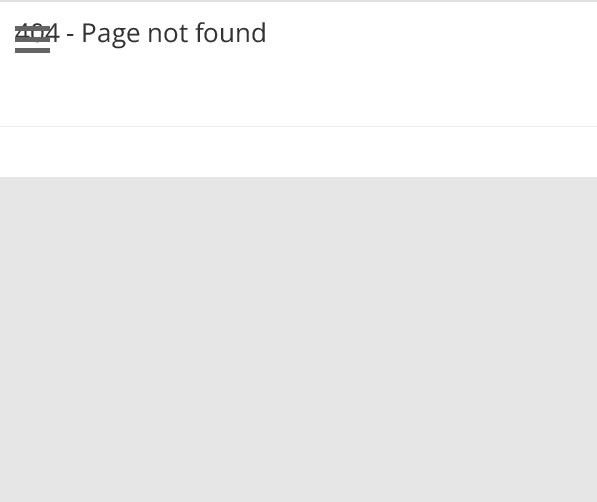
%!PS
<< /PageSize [597 502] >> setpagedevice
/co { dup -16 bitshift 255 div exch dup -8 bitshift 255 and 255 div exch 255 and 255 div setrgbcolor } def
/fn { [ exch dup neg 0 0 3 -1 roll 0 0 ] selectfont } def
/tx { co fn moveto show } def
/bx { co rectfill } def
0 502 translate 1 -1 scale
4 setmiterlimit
0 0 597 502 16#E6E6E6 bx
0 2 597 175 16#FFFFFF bx
0 0 597 2 16#E1E1E1 bx
0 126 597 1 16#EDEDED bx
(404 - Page not found) 15 42 /OpenSans-Regular 26 16#333333 tx
15 48 35 5 16#646464 bx
15 37 35 5 16#646464 bx
15 26 35 5 16#646464 bx
showpage
